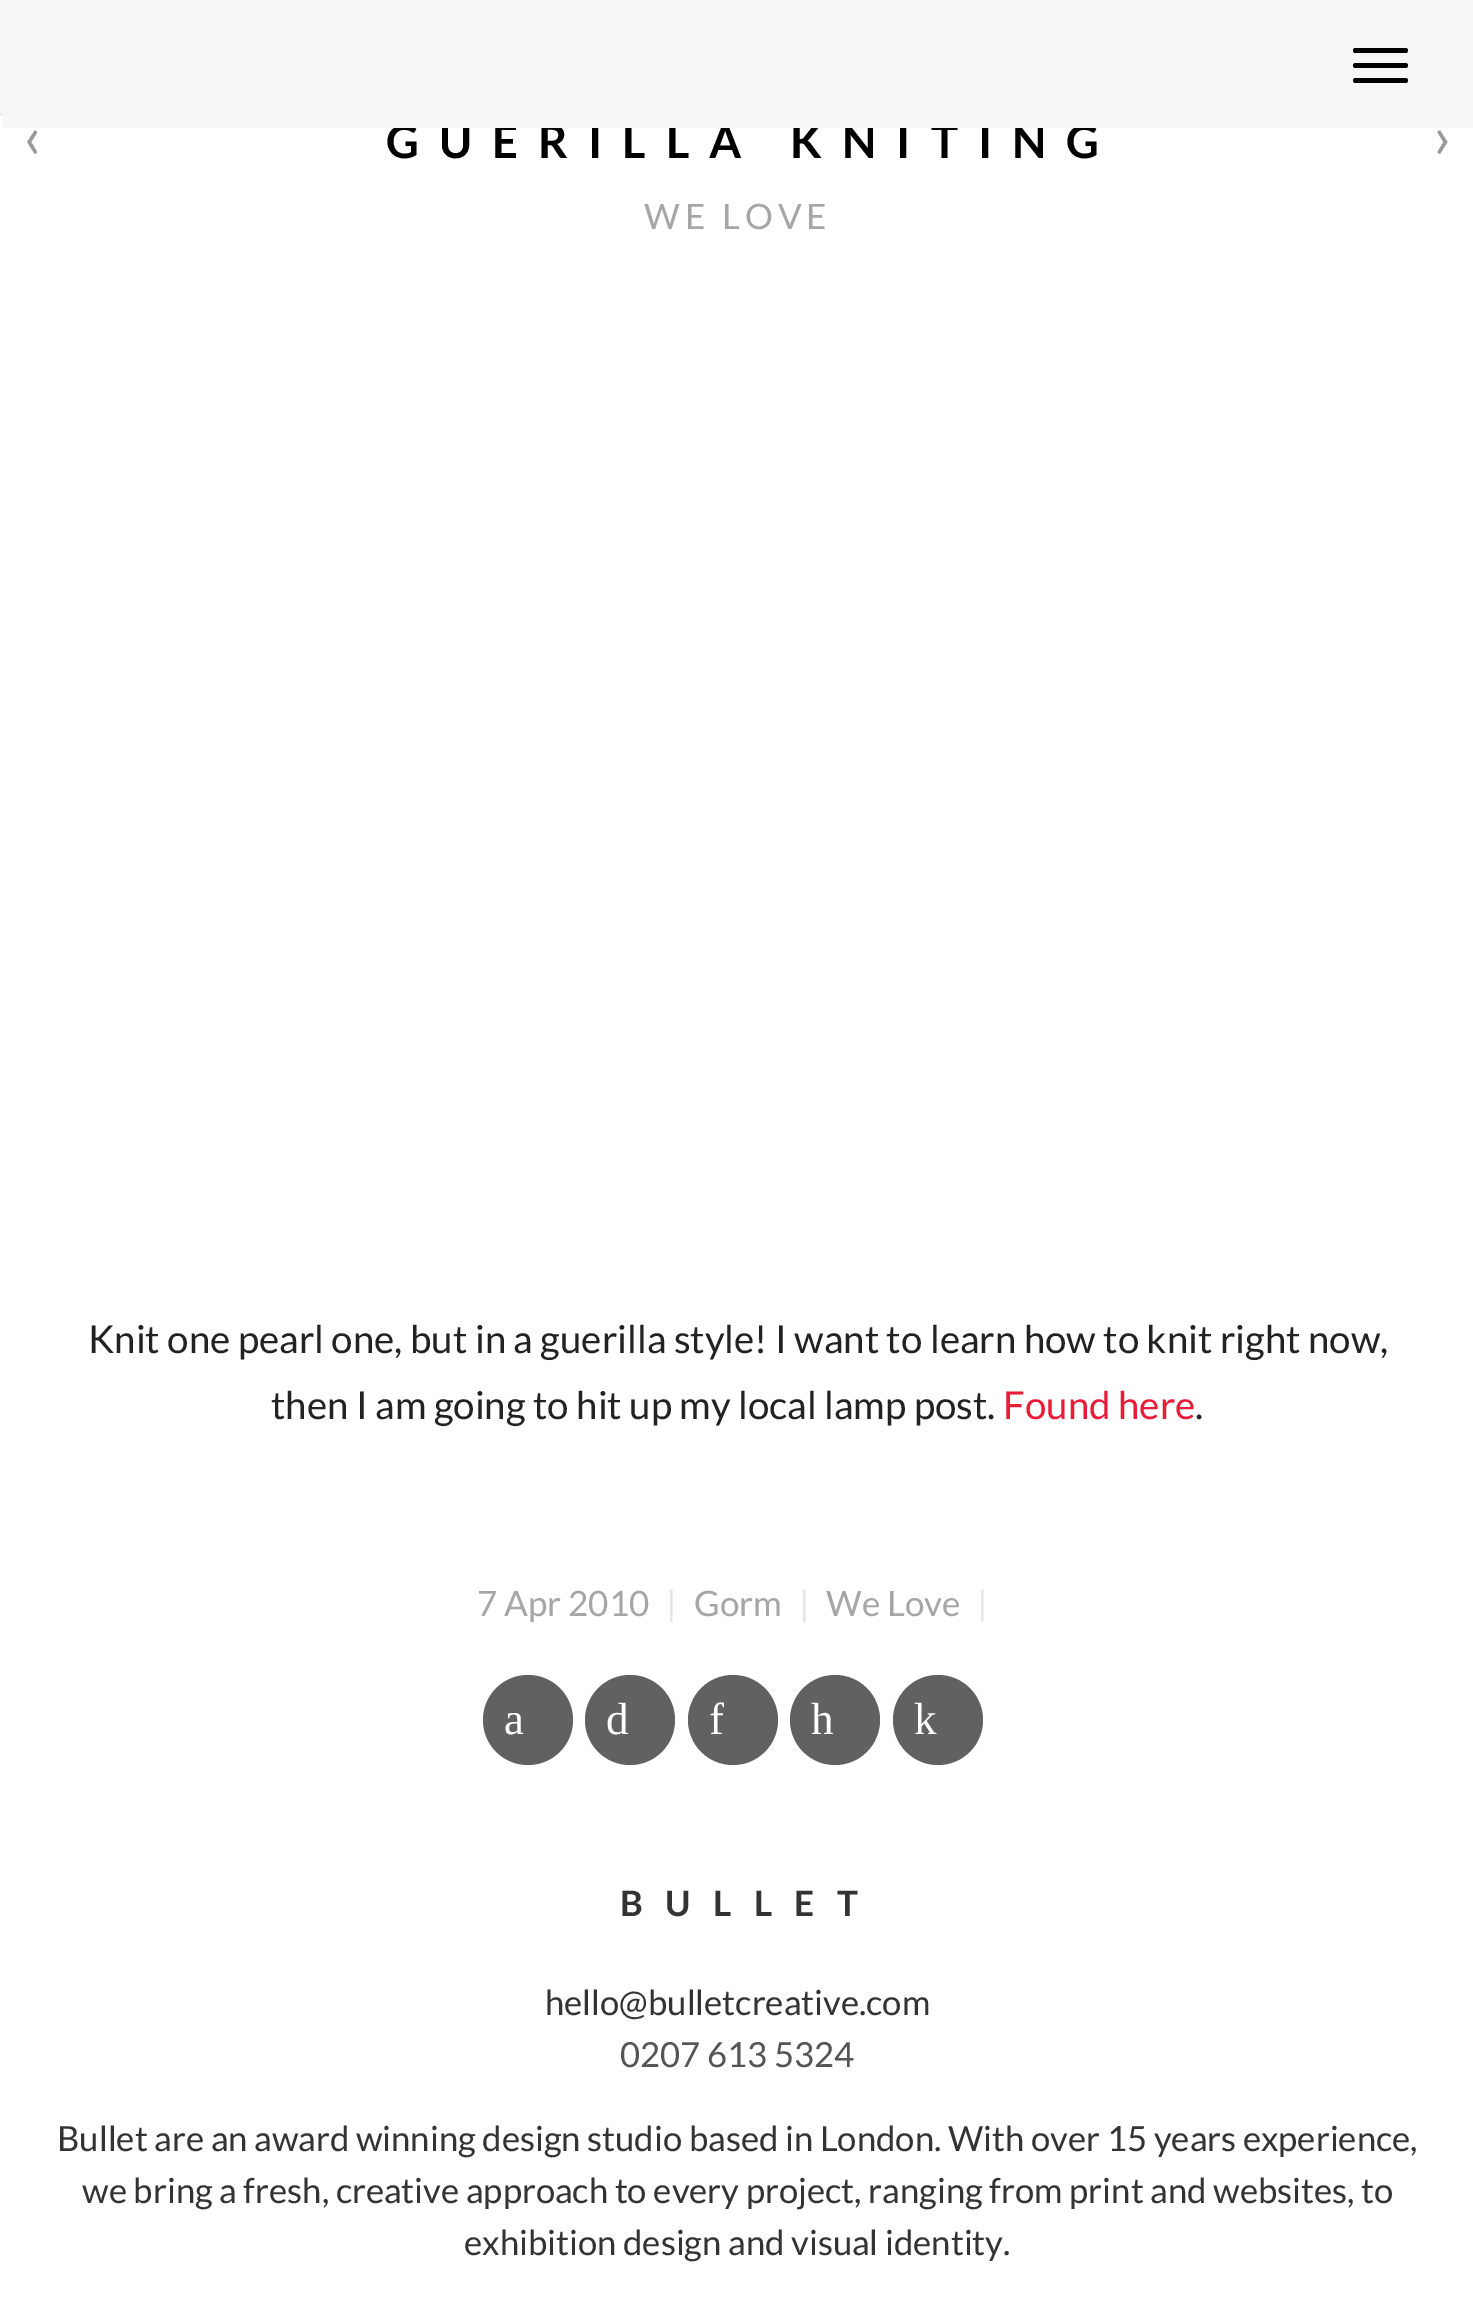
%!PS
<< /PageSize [1473 2310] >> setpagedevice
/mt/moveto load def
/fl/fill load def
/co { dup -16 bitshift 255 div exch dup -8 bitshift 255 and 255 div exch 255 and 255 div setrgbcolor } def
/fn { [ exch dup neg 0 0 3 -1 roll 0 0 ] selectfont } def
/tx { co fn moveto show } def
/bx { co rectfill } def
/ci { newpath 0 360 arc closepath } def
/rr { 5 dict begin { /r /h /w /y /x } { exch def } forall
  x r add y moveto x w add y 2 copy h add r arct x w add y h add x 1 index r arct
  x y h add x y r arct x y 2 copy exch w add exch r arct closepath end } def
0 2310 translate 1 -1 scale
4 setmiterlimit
0 0 1473 2310 16#FFFFFF bx
0 0 1473 113 16#F7F7F7 bx
0 113 3 3 16#EFEFEF bx
16#000000 co
1353 48 55 5 2.5 rr fl
1353 63 55 5 2.5 rr fl
1353 78 55 5 2.5 rr fl
16#616161 co
528 1720 45 ci fl
630 1720 45 ci fl
733 1720 45 ci fl
835 1720 45 ci fl
938 1720 45 ci fl
/Lato-Bold 45.5 fn
16#000000 co
386 158 mt 20 0 (GUERILLA KNITING) ashow
3 113 1470 15 16#F7F7F7 bx
/Lato-Regular 35 fn
16#A7A6A6 co
644 229 mt 5 0 (WE LOVE) ashow
(Knit one pearl one, but in a guerilla style! I want to learn how to knit right now,) 88 1353 /Lato-Regular 38.5 16#222222 tx
(then I am going to hit up my local lamp post.) 271 1419 /Lato-Regular 38.5 16#222222 tx
(Found here) 1003 1419 /Lato-Regular 38.5 16#E91B38 tx
(.) 1195 1419 /Lato-Regular 38.5 16#222222 tx
(‹) 23 158 /Lato-Regular 60 16#999999 tx
(›) 1433 158 /Lato-Regular 60 16#999999 tx
(7 Apr 2010) 477 1616 /Lato-Regular 35 16#A7A6A6 tx
(|) 666 1616 /Lato-Regular 35 16#E7E6E6 tx
(Gorm) 694 1616 /Lato-Regular 35 16#A7A6A6 tx
(|) 799 1616 /Lato-Regular 35 16#E7E6E6 tx
(We Love) 826 1616 /Lato-Regular 35 16#A7A6A6 tx
(|) 977 1616 /Lato-Regular 35 16#E7E6E6 tx
(a) 504 1734 /LiberationSerif-Regular 45 16#FFFFFF tx
(d) 606 1734 /LiberationSerif-Regular 45 16#FFFFFF tx
(f) 709 1734 /LiberationSerif-Regular 45 16#FFFFFF tx
(h) 811 1734 /LiberationSerif-Regular 45 16#FFFFFF tx
(k) 914 1734 /LiberationSerif-Regular 45 16#FFFFFF tx
/Lato-Bold 35 fn
16#333333 co
620 1916 mt 22.5 0 (BULLET) ashow
(hello@bulletcreative.com) 545 2015 /Lato-Regular 34.65 16#333333 tx
(0207 613 5324) 620 2067 /Lato-Regular 34.65 16#555555 tx
(Bullet are an award winning design studio based in London. With over 15 years experience,) 57 2151 /Lato-Regular 34.65 16#333333 tx
(we bring a fresh, creative approach to every project, ranging from print and websites, to) 82 2203 /Lato-Regular 34.65 16#333333 tx
(exhibition design and visual identity.) 464 2255 /Lato-Regular 34.65 16#333333 tx
showpage
